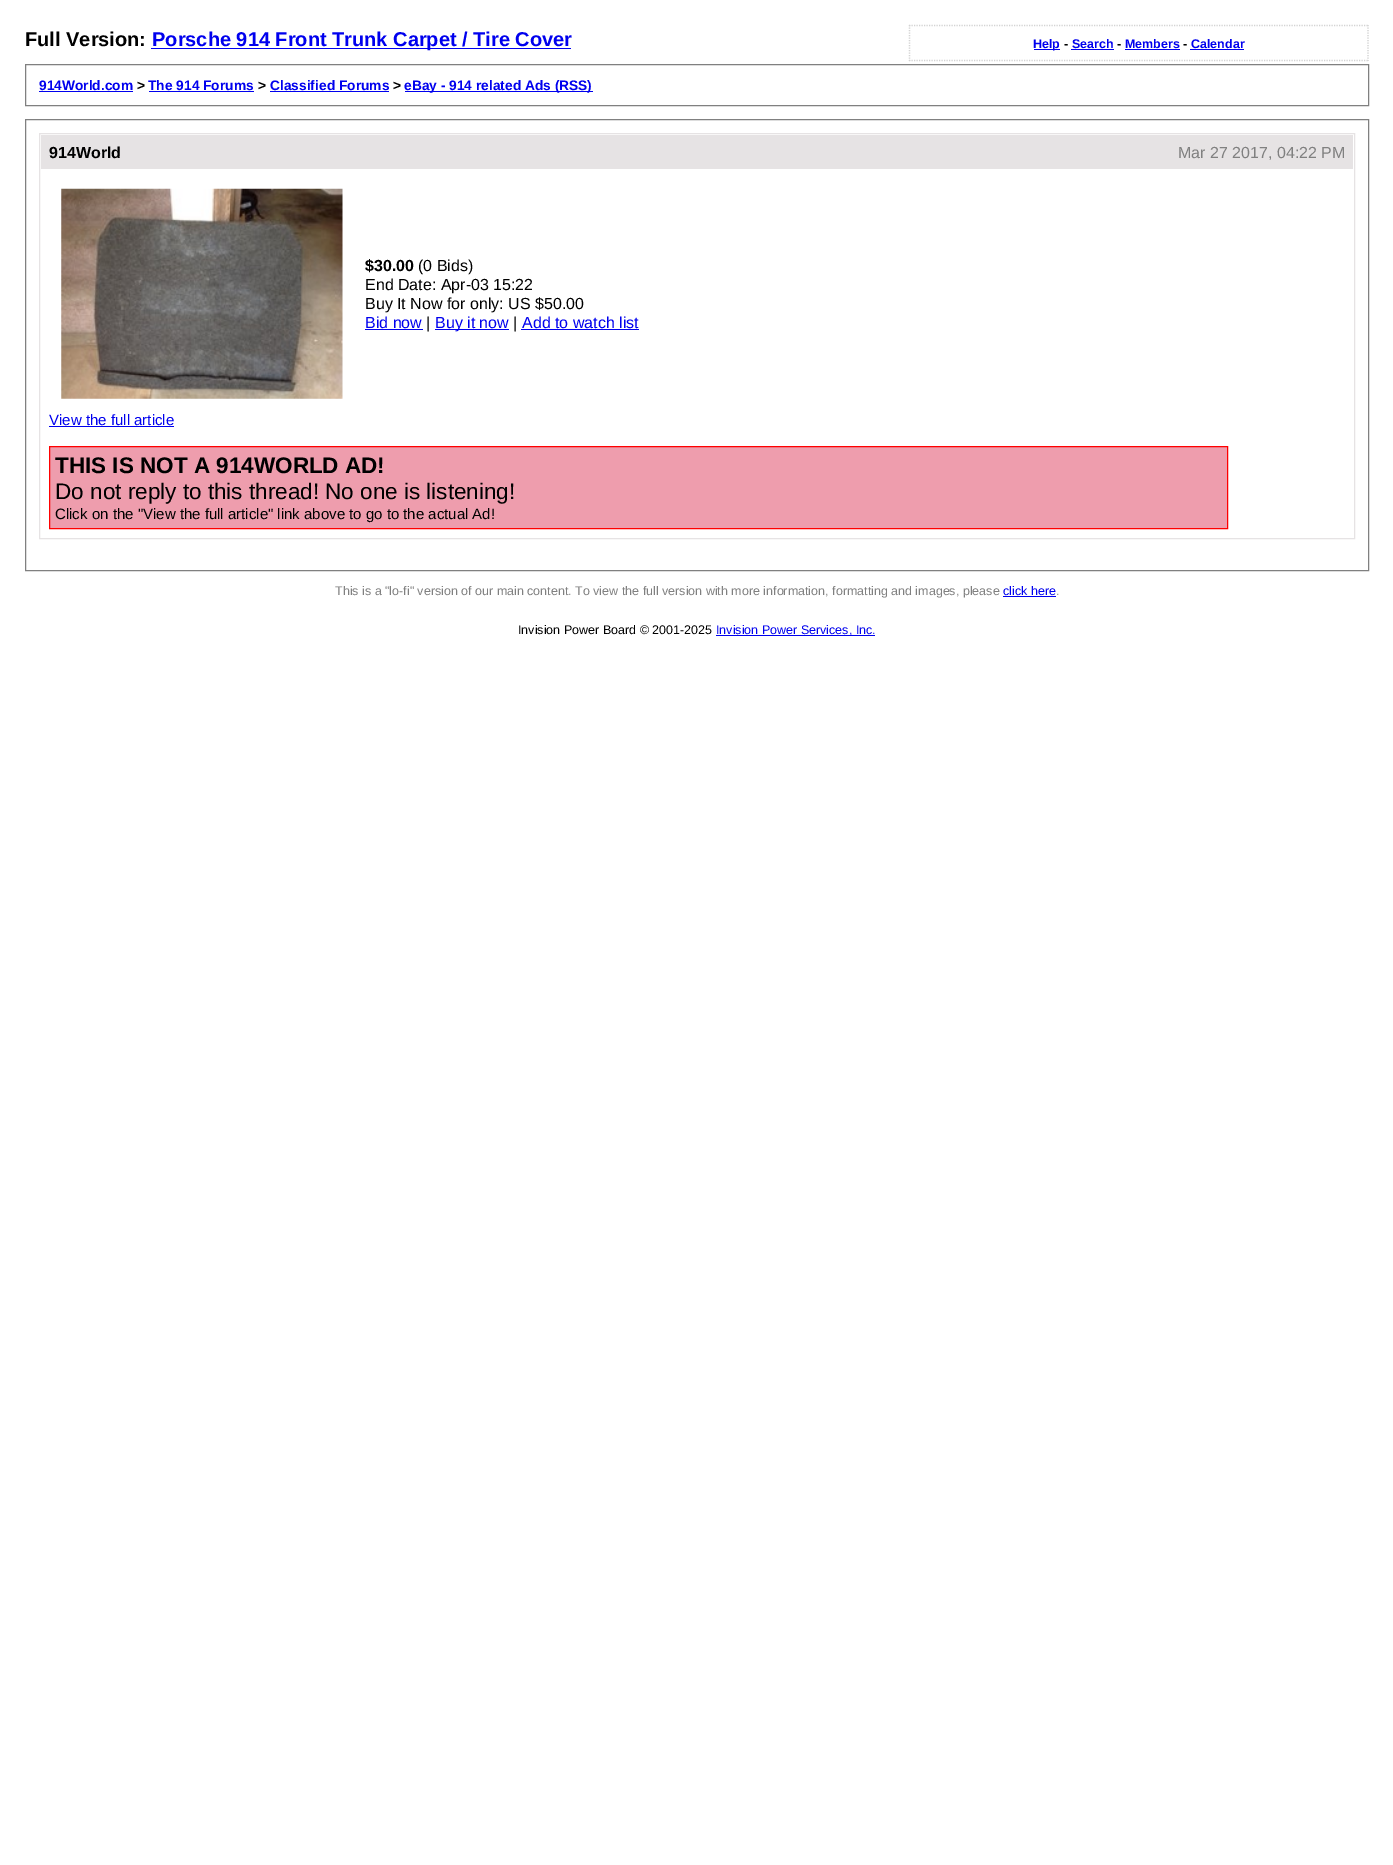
%!PS
<< /PageSize [1393 1865] >> setpagedevice
/mt/moveto load def
/li/lineto load def
/cp/closepath load def
/fl/fill load def
/st/stroke load def
/gs/gsave load def
/gr/grestore load def
/lw/setlinewidth load def
/co { dup -16 bitshift 255 div exch dup -8 bitshift 255 and 255 div exch 255 and 255 div setrgbcolor } def
/fn { [ exch dup neg 0 0 3 -1 roll 0 0 ] selectfont } def
/tx { co fn moveto show } def
/bx { co rectfill } def
/im { 5 dict begin { /h /w /y /x /name } { exch def } forall
  gsave x y translate w h scale
  w h 8 [w 0 0 h 0 0] name (r) file false 3 colorimage grestore end } def
0 1865 translate 1 -1 scale
4 setmiterlimit
0 0 1393 1865 16#FFFFFF bx
151 48 420 1 16#0000EE bx
16#D3D3D3 co
1.2 lw
[1.25 1.25] 0 setdash
909 25.5 mt 1369 25.5 li st
1368 25 mt 1368 61 li st
909 60.5 mt 1369 60.5 li st
909.5 25 mt 909.5 61 li st
1034 49 26 1 16#0000EE bx
1071 49 43 1 16#0000EE bx
1125 49 55 1 16#0000EE bx
1190 49 54 1 16#0000EE bx
16#808080 co
1 lw
[] 0 setdash
25.5 64.5 1343 41 rectstroke
39 91 94 1 16#0000EE bx
149 91 105 1 16#0000EE bx
270 91 119 1 16#0000EE bx
405 91 188 1 16#0000EE bx
16#808080 co
25.5 119.5 1343 451 rectstroke
16#E6E3E4 co
39.5 133.5 1315 405 rectstroke
41 135 1312 34 16#E6E3E4 bx
(media/1.raw) 61 188 282 211 im
365 329 58 1 16#0000EE bx
435 329 74 1 16#0000EE bx
521 329 118 1 16#0000EE bx
49 426 125 1 16#0000EE bx
16#EE9DAD co
49.5 446.5 mt 1227.5 446.5 li 1227.5 528.5 li 49.5 528.5 li cp gs fl gr
16#FF0000 co
st
1003 596 53 1 16#0000EE bx
716 635 159 1 16#0000EE bx
(Full Version:) 25 46 /LiberationSans-Bold 20 16#000000 tx
(Porsche 914 Front Trunk Carpet / Tire Cover) 152 46 /LiberationSans-Bold 20 16#0000EE tx
(Help) 1033 48 /LiberationSans-Bold 12.5 16#0000EE tx
(-) 1064 48 /LiberationSans-Bold 12.5 16#000000 tx
(Search) 1072 48 /LiberationSans-Bold 12.5 16#0000EE tx
(-) 1117 48 /LiberationSans-Bold 12.5 16#000000 tx
(Members) 1125 48 /LiberationSans-Bold 12.5 16#0000EE tx
(-) 1183 48 /LiberationSans-Bold 12.5 16#000000 tx
(Calendar) 1191 48 /LiberationSans-Bold 12.5 16#0000EE tx
(914World.com) 39 90 /LiberationSans-Bold 13.75 16#0000EE tx
(>) 137 90 /LiberationSans-Bold 13.75 16#000000 tx
(The 914 Forums) 148 90 /LiberationSans-Bold 13.75 16#0000EE tx
(>) 258 90 /LiberationSans-Bold 13.75 16#000000 tx
(Classified Forums) 270 90 /LiberationSans-Bold 13.75 16#0000EE tx
(>) 393 90 /LiberationSans-Bold 13.75 16#000000 tx
(eBay - 914 related Ads \(RSS\)) 404 90 /LiberationSans-Bold 13.75 16#0000EE tx
(914World) 49 158 /LiberationSans-Bold 16 16#000000 tx
(Mar 27 2017, 04:22 PM) 1178 158 /LiberationSans-Regular 16 16#808080 tx
($30.00) 365 271 /LiberationSans-Bold 16 16#000000 tx
(\(0 Bids\)) 418 271 /LiberationSans-Regular 16 16#000000 tx
(End Date: Apr-03 15:22) 365 290 /LiberationSans-Regular 16 16#000000 tx
(Buy It Now for only: US $50.00) 365 309 /LiberationSans-Regular 16 16#000000 tx
(Bid now) 365 328 /LiberationSans-Regular 16 16#0000EE tx
(|) 426 328 /LiberationSans-Regular 16 16#000000 tx
(Buy it now) 435 328 /LiberationSans-Regular 16 16#0000EE tx
(|) 513 328 /LiberationSans-Regular 16 16#000000 tx
(Add to watch list) 522 328 /LiberationSans-Regular 16 16#0000EE tx
(View the full article) 49 425 /LiberationSans-Regular 15 16#0000EE tx
(THIS IS NOT A 914WORLD AD!) 55 473 /LiberationSans-Bold 22.5 16#000000 tx
(Do not reply to this thread! No one is listening!) 55 499 /LiberationSans-Regular 22.5 16#000000 tx
(Click on the "View the full article" link above to go to the actual Ad!) 55 519 /LiberationSans-Regular 15 16#000000 tx
(This is a "lo-fi" version of our main content. To view the full version with more information, formatting and images, please) 335 595 /LiberationSans-Regular 12.5 16#808080 tx
(click here) 1003 595 /LiberationSans-Regular 12.5 16#0000EE tx
(.) 1056 595 /LiberationSans-Regular 12.5 16#808080 tx
(Invision Power Board © 2001-2025) 518 634 /LiberationSans-Regular 12.5 16#000000 tx
(Invision Power Services, Inc.) 716 634 /LiberationSans-Regular 12.5 16#0000EE tx
showpage
